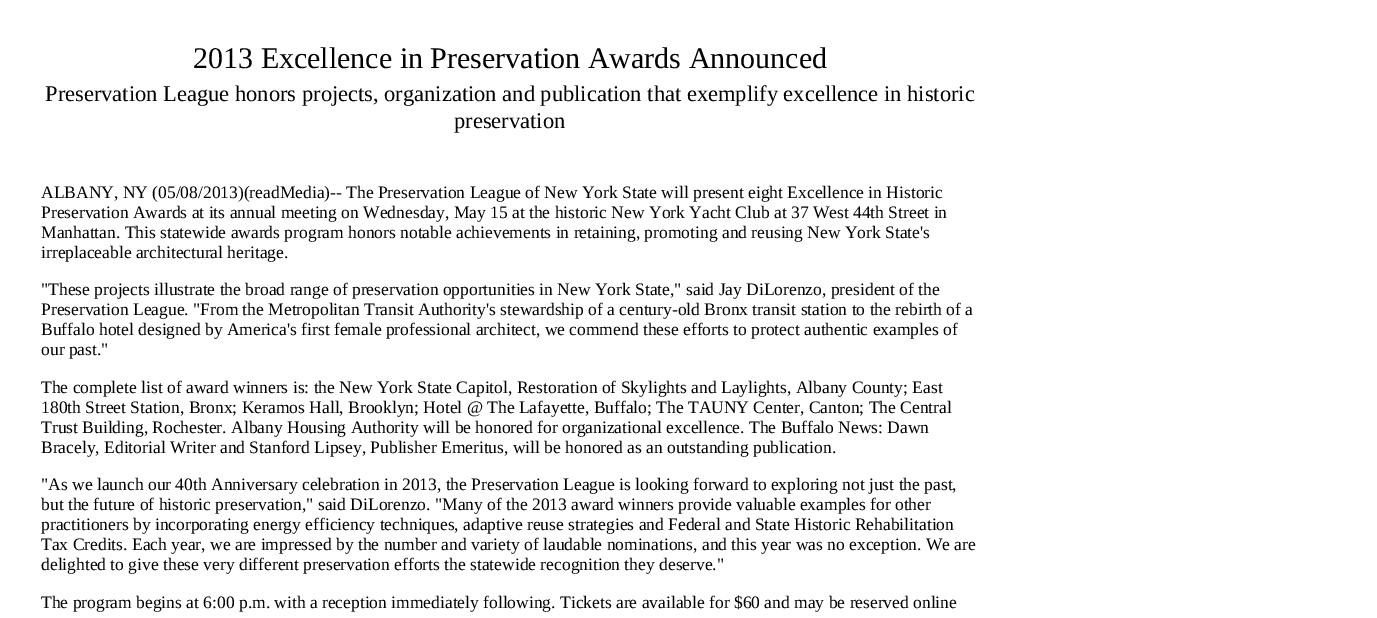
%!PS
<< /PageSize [1377 618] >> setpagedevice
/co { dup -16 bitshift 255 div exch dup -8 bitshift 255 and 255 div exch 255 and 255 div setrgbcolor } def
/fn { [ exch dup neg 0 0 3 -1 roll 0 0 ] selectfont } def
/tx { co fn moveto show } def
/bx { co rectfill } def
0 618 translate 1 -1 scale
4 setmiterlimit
0 0 1377 618 16#FFFFFF bx
(2013 Excellence in Preservation Awards Announced) 193 68 /LiberationSerif-Regular 30 16#000000 tx
(Preservation League honors projects, organization and publication that exemplify excellence in historic) 45 101 /LiberationSerif-Regular 22.5 16#000000 tx
(preservation) 454 128 /LiberationSerif-Regular 22.5 16#000000 tx
(ALBANY, NY \(05/08/2013\)\(readMedia\)-- The Preservation League of New York State will present eight Excellence in Historic) 41 198 /LiberationSerif-Regular 17.5 16#000000 tx
(Preservation Awards at its annual meeting on Wednesday, May 15 at the historic New York Yacht Club at 37 West 44th Street in) 41 218 /LiberationSerif-Regular 17.5 16#000000 tx
(Manhattan. This statewide awards program honors notable achievements in retaining, promoting and reusing New York State's) 41 238 /LiberationSerif-Regular 17.5 16#000000 tx
(irreplaceable architectural heritage.) 41 258 /LiberationSerif-Regular 17.5 16#000000 tx
("These projects illustrate the broad range of preservation opportunities in New York State," said Jay DiLorenzo, president of the) 41 295 /LiberationSerif-Regular 17.5 16#000000 tx
(Preservation League. "From the Metropolitan Transit Authority's stewardship of a century-old Bronx transit station to the rebirth of a) 41 315 /LiberationSerif-Regular 17.5 16#000000 tx
(Buffalo hotel designed by America's first female professional architect, we commend these efforts to protect authentic examples of) 41 335 /LiberationSerif-Regular 17.5 16#000000 tx
(our past.") 41 355 /LiberationSerif-Regular 17.5 16#000000 tx
(The complete list of award winners is: the New York State Capitol, Restoration of Skylights and Laylights, Albany County; East) 41 393 /LiberationSerif-Regular 17.5 16#000000 tx
(180th Street Station, Bronx; Keramos Hall, Brooklyn; Hotel @ The Lafayette, Buffalo; The TAUNY Center, Canton; The Central) 41 413 /LiberationSerif-Regular 17.5 16#000000 tx
(Trust Building, Rochester. Albany Housing Authority will be honored for organizational excellence. The Buffalo News: Dawn) 41 433 /LiberationSerif-Regular 17.5 16#000000 tx
(Bracely, Editorial Writer and Stanford Lipsey, Publisher Emeritus, will be honored as an outstanding publication.) 41 453 /LiberationSerif-Regular 17.5 16#000000 tx
("As we launch our 40th Anniversary celebration in 2013, the Preservation League is looking forward to exploring not just the past,) 41 490 /LiberationSerif-Regular 17.5 16#000000 tx
(but the future of historic preservation," said DiLorenzo. "Many of the 2013 award winners provide valuable examples for other) 41 510 /LiberationSerif-Regular 17.5 16#000000 tx
(practitioners by incorporating energy efficiency techniques, adaptive reuse strategies and Federal and State Historic Rehabilitation) 41 530 /LiberationSerif-Regular 17.5 16#000000 tx
(Tax Credits. Each year, we are impressed by the number and variety of laudable nominations, and this year was no exception. We are) 41 550 /LiberationSerif-Regular 17.5 16#000000 tx
(delighted to give these very different preservation efforts the statewide recognition they deserve.") 41 570 /LiberationSerif-Regular 17.5 16#000000 tx
(The program begins at 6:00 p.m. with a reception immediately following. Tickets are available for $60 and may be reserved online) 41 608 /LiberationSerif-Regular 17.5 16#000000 tx
showpage
